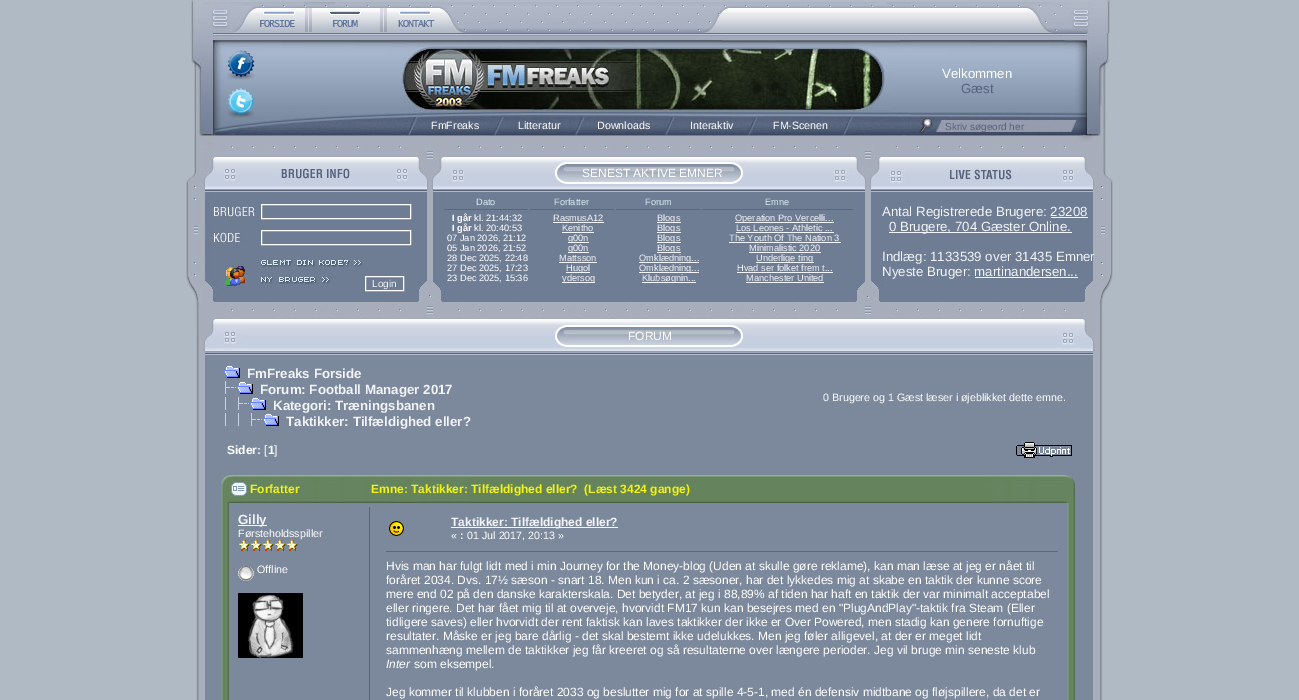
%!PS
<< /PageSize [1299 700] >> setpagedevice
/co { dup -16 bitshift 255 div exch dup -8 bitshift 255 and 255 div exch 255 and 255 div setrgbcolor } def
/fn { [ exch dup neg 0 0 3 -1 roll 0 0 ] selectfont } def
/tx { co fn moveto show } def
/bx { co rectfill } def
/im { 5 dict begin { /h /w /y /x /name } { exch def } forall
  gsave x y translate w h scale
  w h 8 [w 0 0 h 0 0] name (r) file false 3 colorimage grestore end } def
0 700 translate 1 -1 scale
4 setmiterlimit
0 0 1299 700 16#B0BAC4 bx
(media/1.raw) 191 0 39 33 im
(media/2.raw) 230 0 78 33 im
(media/3.raw) 308 0 75 32 im
(media/4.raw) 383 0 82 33 im
(media/5.raw) 465 0 645 33 im
(media/6.raw) 187 33 926 78 im
(media/7.raw) 227 50 28 30 im
(media/9.raw) 194 111 912 25 im
(media/8.raw) 227 88 28 30 im
(media/10.raw) 494 117 10 18 im
(media/11.raw) 575 117 10 18 im
(media/12.raw) 665 117 10 18 im
(media/13.raw) 748 117 10 18 im
(media/14.raw) 843 117 10 18 im
(media/15.raw) 919 117 14 16 im
(media/16.raw) 186 136 927 56 im
(media/17.raw) 430 192 438 110 im
444 209 84 1 16#666666 bx
530 209 84 1 16#666666 bx
616 209 84 1 16#666666 bx
702 209 151 1 16#666666 bx
553 222 51 1 16#F2F4F8 bx
657 222 24 1 16#F2F4F8 bx
735 222 99 1 16#F2F4F8 bx
562 232 32 1 16#F2F4F8 bx
657 232 24 1 16#F2F4F8 bx
736 232 98 1 16#F2F4F8 bx
568 242 21 1 16#F2F4F8 bx
657 242 24 1 16#F2F4F8 bx
729 242 112 1 16#F2F4F8 bx
568 252 21 1 16#F2F4F8 bx
657 252 24 1 16#F2F4F8 bx
749 252 72 1 16#F2F4F8 bx
559 262 38 1 16#F2F4F8 bx
639 262 60 1 16#F2F4F8 bx
756 262 58 1 16#F2F4F8 bx
566 272 24 1 16#F2F4F8 bx
639 272 60 1 16#F2F4F8 bx
737 272 96 1 16#F2F4F8 bx
562 282 33 1 16#F2F4F8 bx
642 282 54 1 16#F2F4F8 bx
746 282 78 1 16#F2F4F8 bx
(media/18.raw) 868 192 245 110 im
1051 217 37 1 16#F2F4F8 bx
889 232 183 1 16#F2F4F8 bx
975 277 103 1 16#F2F4F8 bx
(media/19.raw) 186 192 244 110 im
(media/20.raw) 214 206 41 11 im
16#FFFFFF co
261.5 204.5 149 14 rectstroke
(media/21.raw) 214 232 32 11 im
261.5 230.5 149 14 rectstroke
(media/22.raw) 261 259 102 8 im
(media/23.raw) 225 266 20 20 im
(media/24.raw) 261 276 70 8 im
365.5 276.5 38 14 rectstroke
(media/25.raw) 196 302 907 53 im
(media/26.raw) 186 355 927 345 im
(media/27.raw) 224 365 16 13 im
(media/28.raw) 225 381 11 13 im
(media/27.raw) 237 381 16 13 im
(media/28.raw) 238 397 11 13 im
(media/27.raw) 250 397 16 13 im
225 397 1 13 16#C6D1E1 bx
(media/28.raw) 251 413 11 13 im
(media/27.raw) 263 413 16 13 im
225 413 1 13 16#C6D1E1 bx
238 413 1 13 16#C6D1E1 bx
(media/29.raw) 1016 442 56 16 im
(media/30.raw) 221 475 854 28 im
(media/31.raw) 231 482 16 14 im
(media/32.raw) 221 503 854 197 im
238 525 29 1 16#F2F4F8 bx
(media/34.raw) 238 566 16 15 im
(media/35.raw) 238 593 65 65 im
369 507 1 193 16#57657E bx
(media/36.raw) 389 521 15 15 im
451 527 167 1 16#F2F4F8 bx
386 551 672 1 16#666666 bx
(Velkommen) 942 78 /LiberationSans-Regular 13.3 16#FFFFFF tx
(Gæst) 961 93 /LiberationSans-Regular 13.3 16#54627B tx
(FmFreaks) 431 129 /LiberationSans-Regular 10.7 16#FFFFFF tx
(Litteratur) 518 129 /LiberationSans-Regular 10.7 16#FFFFFF tx
(Downloads) 597 129 /LiberationSans-Regular 10.7 16#FFFFFF tx
(Interaktiv) 690 129 /LiberationSans-Regular 10.7 16#FFFFFF tx
(FM-Scenen) 773 129 /LiberationSans-Regular 10.7 16#FFFFFF tx
(Skriv søgeord her) 945 130 /LiberationSans-Regular 10 16#54627B tx
(SENEST AKTIVE EMNER) 582 177 /LiberationSans-Regular 12 16#FFFFFF tx
(Dato) 476 205 /LiberationSans-Regular 9.25 16#D5EDF3 tx
(Forfatter) 554 205 /LiberationSans-Regular 9.25 16#D5EDF3 tx
(Forum) 645 205 /LiberationSans-Regular 9.25 16#D5EDF3 tx
(Emne) 765 205 /LiberationSans-Regular 9.25 16#D5EDF3 tx
(I går) 452 221 /LiberationSans-Bold 9.25 16#FFFFFF tx
(kl. 21:44:32) 474 221 /LiberationSans-Regular 9.25 16#FFFFFF tx
(RasmusA12) 553 221 /LiberationSans-Regular 9.25 16#F2F4F8 tx
(Blogs) 657 221 /LiberationSans-Regular 9.25 16#F2F4F8 tx
(Operation Pro Vercelli...) 735 221 /LiberationSans-Regular 9.25 16#F2F4F8 tx
(I går) 452 231 /LiberationSans-Bold 9.25 16#FFFFFF tx
(kl. 20:40:53) 474 231 /LiberationSans-Regular 9.25 16#FFFFFF tx
(Kenitho) 562 231 /LiberationSans-Regular 9.25 16#F2F4F8 tx
(Blogs) 657 231 /LiberationSans-Regular 9.25 16#F2F4F8 tx
(Los Leones - Athletic ...) 736 231 /LiberationSans-Regular 9.25 16#F2F4F8 tx
(07 Jan 2026, 21:12) 447 241 /LiberationSans-Regular 9.25 16#FFFFFF tx
(g00n) 568 241 /LiberationSans-Regular 9.25 16#F2F4F8 tx
(Blogs) 657 241 /LiberationSans-Regular 9.25 16#F2F4F8 tx
(The Youth Of The Nation 3) 729 241 /LiberationSans-Regular 9.25 16#F2F4F8 tx
(05 Jan 2026, 21:52) 447 251 /LiberationSans-Regular 9.25 16#FFFFFF tx
(g00n) 568 251 /LiberationSans-Regular 9.25 16#F2F4F8 tx
(Blogs) 657 251 /LiberationSans-Regular 9.25 16#F2F4F8 tx
(Minimalistic 2020) 749 251 /LiberationSans-Regular 9.25 16#F2F4F8 tx
(28 Dec 2025, 22:48) 447 261 /LiberationSans-Regular 9.25 16#FFFFFF tx
(Mattsson) 559 261 /LiberationSans-Regular 9.25 16#F2F4F8 tx
(Omklædning...) 639 261 /LiberationSans-Regular 9.25 16#F2F4F8 tx
(Underlige ting) 756 261 /LiberationSans-Regular 9.25 16#F2F4F8 tx
(27 Dec 2025, 17:23) 447 271 /LiberationSans-Regular 9.25 16#FFFFFF tx
(Hugol) 566 271 /LiberationSans-Regular 9.25 16#F2F4F8 tx
(Omklædning...) 639 271 /LiberationSans-Regular 9.25 16#F2F4F8 tx
(Hvad ser folket frem t...) 737 271 /LiberationSans-Regular 9.25 16#F2F4F8 tx
(23 Dec 2025, 15:36) 447 281 /LiberationSans-Regular 9.25 16#FFFFFF tx
(ydersog) 562 281 /LiberationSans-Regular 9.25 16#F2F4F8 tx
(Klubsøgnin...) 642 281 /LiberationSans-Regular 9.25 16#F2F4F8 tx
(Manchester United) 746 281 /LiberationSans-Regular 9.25 16#F2F4F8 tx
(Antal Registrerede Brugere: 23208) 882 216 /LiberationSans-Regular 13.3 16#F2F4F8 tx
(0 Brugere, 704 Gæster Online.) 889 231 /LiberationSans-Regular 13.3 16#F2F4F8 tx
(Indlæg: 1133539 over 31435 Emner) 882 261 /LiberationSans-Regular 13.3 16#F2F4F8 tx
(Nyeste Bruger: martinandersen...) 882 276 /LiberationSans-Regular 13.3 16#F2F4F8 tx
(Login) 372 287 /LiberationSans-Regular 10 16#F2F4F8 tx
(FORUM) 628 340 /LiberationSans-Regular 12 16#FFFFFF tx
(FmFreaks Forside) 247 378 /LiberationSans-Bold 13.3 16#F2F4F8 tx
(Forum: Football Manager 2017) 260 394 /LiberationSans-Bold 13.3 16#F2F4F8 tx
(Kategori: Træningsbanen) 273 410 /LiberationSans-Bold 13.3 16#F2F4F8 tx
(Taktikker: Tilfældighed eller?) 286 426 /LiberationSans-Bold 13.3 16#F2F4F8 tx
(0 Brugere og 1 Gæst læser i øjeblikket dette emne.) 823 401 /LiberationSans-Regular 10.7 16#FFFFFF tx
(Sider:) 227 454 /LiberationSans-Bold 12 16#FFFFFF tx
([) 264 454 /LiberationSans-Regular 12 16#FFFFFF tx
(1) 268 454 /LiberationSans-Bold 12 16#FFFFFF tx
(]) 274 454 /LiberationSans-Regular 12 16#FFFFFF tx
(Forfatter) 250 493 /LiberationSans-Bold 12 16#F3F414 tx
(Emne: Taktikker: Tilfældighed eller?  \(Læst 3424 gange\)) 371 493 /LiberationSans-Bold 12 16#F3F414 tx
(Gilly) 238 524 /LiberationSans-Bold 13.3 16#F2F4F8 tx
(Førsteholdsspiller) 238 537 /LiberationSans-Regular 10.7 16#FFFFFF tx
(media/33.raw) 238 539 12 12 im
(media/33.raw) 250 539 12 12 im
(media/33.raw) 262 539 12 12 im
(media/33.raw) 274 539 12 12 im
(media/33.raw) 286 539 12 12 im
(Offline) 257 573 /LiberationSans-Regular 10.7 16#FFFFFF tx
(Taktikker: Tilfældighed eller?) 451 526 /LiberationSans-Bold 12 16#F2F4F8 tx
(«) 451 539 /LiberationSans-Regular 10.7 16#FFFFFF tx
(:) 460 539 /LiberationSans-Bold 10.7 16#FFFFFF tx
(01 Jul 2017, 20:13 ») 467 539 /LiberationSans-Regular 10.7 16#FFFFFF tx
(Hvis man har fulgt lidt med i min Journey for the Money-blog \(Uden at skulle gøre reklame\), kan man læse at jeg er nået til) 386 570 /LiberationSans-Regular 12 16#FFFFFF tx
(foråret 2034. Dvs. 17½ sæson - snart 18. Men kun i ca. 2 sæsoner, har det lykkedes mig at skabe en taktik der kunne score) 386 584 /LiberationSans-Regular 12 16#FFFFFF tx
(mere end 02 på den danske karakterskala. Det betyder, at jeg i 88,89% af tiden har haft en taktik der var minimalt acceptabel) 386 598 /LiberationSans-Regular 12 16#FFFFFF tx
(eller ringere. Det har fået mig til at overveje, hvorvidt FM17 kun kan besejres med en "PlugAndPlay"-taktik fra Steam \(Eller) 386 612 /LiberationSans-Regular 12 16#FFFFFF tx
(tidligere saves\) eller hvorvidt der rent faktisk kan laves taktikker der ikke er Over Powered, men stadig kan genere fornuftige) 386 626 /LiberationSans-Regular 12 16#FFFFFF tx
(resultater. Måske er jeg bare dårlig - det skal bestemt ikke udelukkes. Men jeg føler alligevel, at der er meget lidt) 386 640 /LiberationSans-Regular 12 16#FFFFFF tx
(sammenhæng mellem de taktikker jeg får kreeret og så resultaterne over længere perioder. Jeg vil bruge min seneste klub) 386 654 /LiberationSans-Regular 12 16#FFFFFF tx
(Inter) 386 668 /LiberationSans-Italic 12 16#FFFFFF tx
(som eksempel.) 414 668 /LiberationSans-Regular 12 16#FFFFFF tx
(Jeg kommer til klubben i foråret 2033 og beslutter mig for at spille 4-5-1, med én defensiv midtbane og fløjspillere, da det er) 386 696 /LiberationSans-Regular 12 16#FFFFFF tx
showpage
